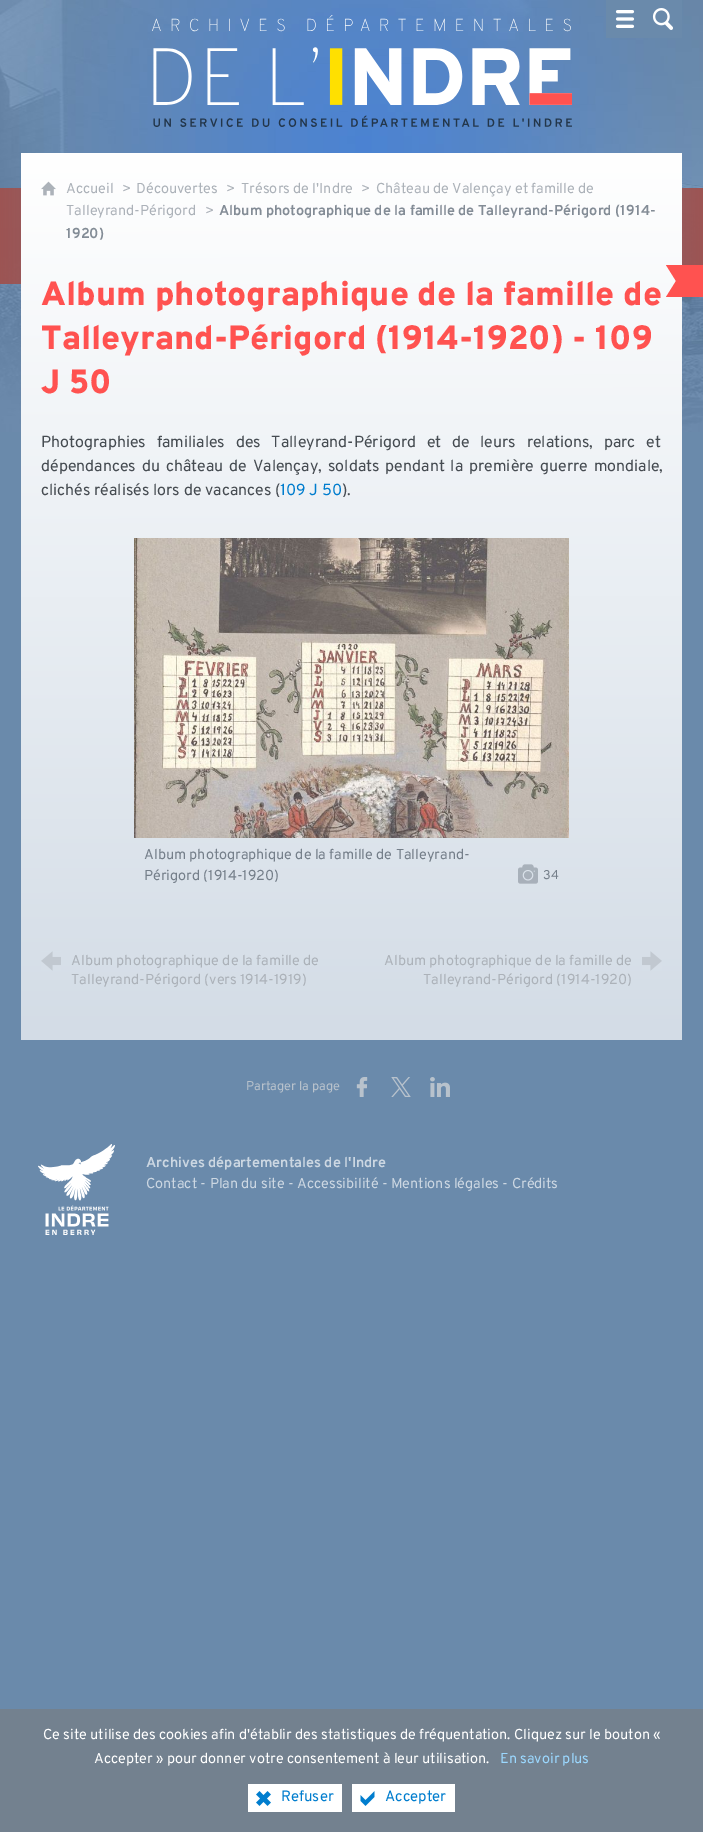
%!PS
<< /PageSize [703 1832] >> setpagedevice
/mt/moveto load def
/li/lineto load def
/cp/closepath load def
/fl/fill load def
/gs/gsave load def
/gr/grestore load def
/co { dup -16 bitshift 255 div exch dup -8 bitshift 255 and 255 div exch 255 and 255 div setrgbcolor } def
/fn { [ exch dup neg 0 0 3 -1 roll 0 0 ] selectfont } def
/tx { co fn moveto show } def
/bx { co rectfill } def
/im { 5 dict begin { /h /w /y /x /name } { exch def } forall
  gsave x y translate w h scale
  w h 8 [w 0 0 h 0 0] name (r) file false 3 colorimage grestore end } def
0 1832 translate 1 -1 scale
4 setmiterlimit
0 0 703 1832 16#6A8AAB bx
(media/1.raw) 0 0 703 432 im
(media/2.raw) 152 15 420 112 im
606 0 76 38 16#6A8AAB bx
(media/3.raw) 615 10 20 18 im
(media/4.raw) 652 8 21 22 im
gs 21 153 mt 682 153 li 682 1040 li 21 1040 li cp clip newpath
<< /ShadingType 2 /ColorSpace /DeviceRGB /Coords [351 153 352 1040] /Extend [true true] /Function << /FunctionType 2 /Domain [0 1] /C0 [1 1 1] /C1 [.827 .863 .902] /N 1 >> >> shfill gr
(media/5.raw) 41 181 15 15 im
(media/6.raw) 134 538 435 300 im
(media/7.raw) 518 864 20 20 im
(media/8.raw) 41 951 20 20 im
(media/9.raw) 642 951 20 20 im
16#FF5250 co
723 297 mt 666 297 li 676 281 li 666 265 li 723 265 li cp fl
(media/10.raw) 356 1077 12 20 im
(media/11.raw) 391 1077 20 20 im
(media/12.raw) 430 1077 20 20 im
(media/13.raw) 38 1144 77 91 im
0 1709 703 123 16#73818F bx
248 1784 94 28 16#FFFFFF bx
(media/14.raw) 256 1791 15 15 im
352 1784 103 28 16#FFFFFF bx
(media/15.raw) 360 1791 15 15 im
(Accueil) 66 193 /Overpass-Regular 14.4 16#ACB2B9 tx
(>) 122 193 /Overpass-Regular 14.4 16#ACB2B9 tx
(Découvertes) 136 193 /Overpass-Regular 14.4 16#ACB2B9 tx
(>) 226 193 /Overpass-Regular 14.4 16#ACB2B9 tx
(Trésors de l'Indre) 241 193 /Overpass-Regular 14.4 16#ACB2B9 tx
(>) 361 193 /Overpass-Regular 14.4 16#ACB2B9 tx
(Château de Valençay et famille de) 376 193 /Overpass-Regular 14.4 16#ACB2B9 tx
(Talleyrand-Périgord) 66 215 /Overpass-Regular 14.4 16#ACB2B9 tx
(>) 205 215 /Overpass-Regular 14.4 16#ACB2B9 tx
(Album photographique de la famille de Talleyrand-Périgord \(1914-) 219 215 /Overpass-Bold 14.4 16#838C96 tx
(1920\)) 66 238 /Overpass-Bold 14.4 16#838C96 tx
(Album photographique de la famille de) 41 305 /Overpass-Black 33.6 16#FF5250 tx
(Talleyrand-Périgord \(1914-1920\) - 109) 41 349 /Overpass-Black 33.6 16#FF5250 tx
(J 50) 41 393 /Overpass-Black 33.6 16#FF5250 tx
/Overpass-Regular 16 fn
16#464C52 co
41 447 mt 7 0 32 (Photographies familiales des Talleyrand-Périgord et de leurs relations, parc et) widthshow
41 471 mt 2.25 0 32 (dépendances du château de Valençay, soldats pendant la première guerre mondiale,) widthshow
(clichés réalisés lors de vacances \() 41 495 /Overpass-Regular 16 16#464C52 tx
(109 J 50) 280 495 /Overpass-Regular 16 16#007DCE tx
(\).) 342 495 /Overpass-Regular 16 16#464C52 tx
(Album photographique de la famille de Talleyrand-) 144 859 /Overpass-Regular 14.4 16#757F8A tx
(Périgord \(1914-1920\)) 144 880 /Overpass-Regular 14.4 16#757F8A tx
(34) 543 879 /Overpass-Regular 12.75 16#757F8A tx
(Album photographique de la famille de) 71 965 /Overpass-Regular 14.4 16#ACB2B9 tx
(Talleyrand-Périgord \(vers 1914-1919\)) 71 984 /Overpass-Regular 14.4 16#ACB2B9 tx
(Album photographique de la famille de) 384 965 /Overpass-Regular 14.4 16#ACB2B9 tx
(Talleyrand-Périgord \(1914-1920\)) 423 984 /Overpass-Regular 14.4 16#ACB2B9 tx
(Partager la page) 246 1090 /Overpass-Regular 12.75 16#B8C2CC tx
(Archives départementales de l'Indre) 146 1167 /Overpass-Bold 14.4 16#CCD7E2 tx
(Contact - Plan du site - Accessibilité - Mentions légales - Crédits) 146 1188 /Overpass-Regular 14.4 16#CCD7E2 tx
(Ce site utilise des cookies afin d'établir des statistiques de fréquentation. Cliquez sur le bouton «) 43 1739 /Overpass-Regular 14.4 16#FFFFFF tx
(Accepter » pour donner votre consentement à leur utilisation.) 94 1763 /Overpass-Regular 14.4 16#FFFFFF tx
(En savoir plus) 500 1763 /Overpass-Regular 14.4 16#9BD8FF tx
(Refuser) 281 1801 /Overpass-Regular 15 16#007DCE tx
(Accepter) 385 1801 /Overpass-Regular 15 16#007DCE tx
showpage
